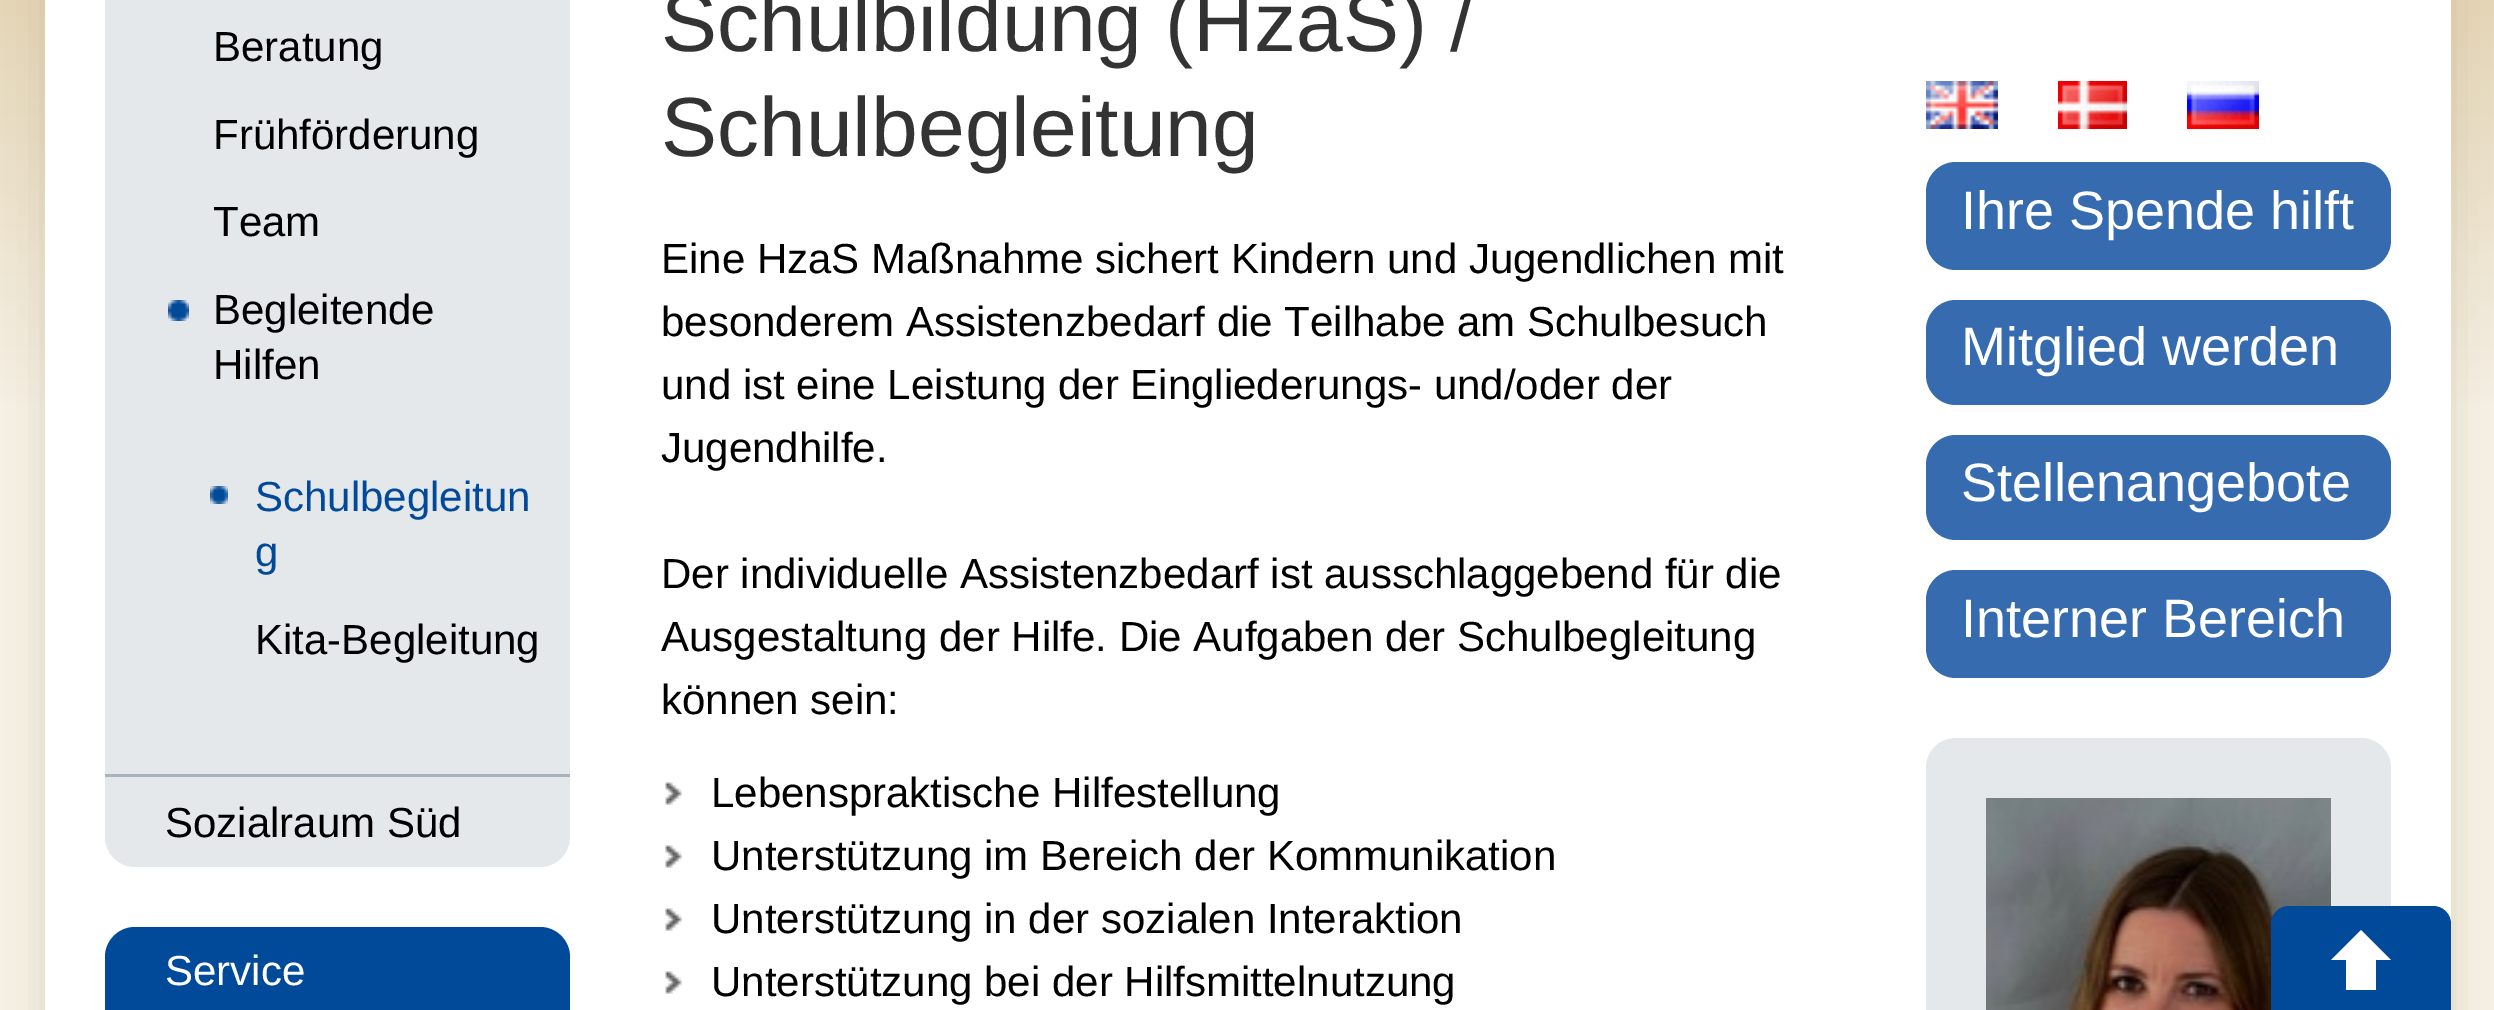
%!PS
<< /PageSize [2494 1010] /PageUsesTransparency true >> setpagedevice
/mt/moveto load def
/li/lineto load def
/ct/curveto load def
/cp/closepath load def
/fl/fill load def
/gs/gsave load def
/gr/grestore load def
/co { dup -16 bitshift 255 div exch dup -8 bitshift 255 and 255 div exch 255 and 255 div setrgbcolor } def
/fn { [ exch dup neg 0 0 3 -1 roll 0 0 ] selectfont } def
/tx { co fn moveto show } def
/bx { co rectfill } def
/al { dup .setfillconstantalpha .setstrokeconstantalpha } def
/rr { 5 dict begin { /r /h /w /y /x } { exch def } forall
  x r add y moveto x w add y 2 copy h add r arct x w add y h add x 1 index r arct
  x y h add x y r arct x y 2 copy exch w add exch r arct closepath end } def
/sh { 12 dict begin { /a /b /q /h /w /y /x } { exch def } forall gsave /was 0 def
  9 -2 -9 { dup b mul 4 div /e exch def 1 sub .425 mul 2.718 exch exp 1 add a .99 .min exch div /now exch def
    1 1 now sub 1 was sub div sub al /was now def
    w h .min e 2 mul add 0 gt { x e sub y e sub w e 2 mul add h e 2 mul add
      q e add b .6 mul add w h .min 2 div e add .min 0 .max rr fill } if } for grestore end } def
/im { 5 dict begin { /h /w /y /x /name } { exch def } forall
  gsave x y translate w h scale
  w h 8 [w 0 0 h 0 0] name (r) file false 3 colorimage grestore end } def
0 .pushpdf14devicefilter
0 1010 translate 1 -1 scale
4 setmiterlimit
0 0 2494 1010 16#FFFFFF bx
gs 0 0 mt 2494 0 li 2494 1010 li 0 1010 li cp clip newpath
<< /ShadingType 2 /ColorSpace /DeviceRGB /Coords [1248 0 1248 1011] /Extend [true true] /Function << /FunctionType 3 /Domain [0 1] /Functions [<< /FunctionType 2 /Domain [0 1] /C0 [.898 .843 .722] /C1 [.965 .945 .898] /N 1 >> << /FunctionType 2 /Domain [0 1] /C0 [.965 .945 .898] /C1 [.965 .945 .898] /N 1 >>] /Bounds [.4] /Encode [0 1 0 1] >> >> shfill gr
16#A79060 co
45 -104 2406 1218 36 22.5 .3 sh
45 0 2406 1010 16#FFFFFF bx
105 0 465 774 16#E5E8EB bx
(media/1.raw) 168 300 21 21 im
(media/2.raw) 210 486 18 18 im
105 774 mt 570 774 li 570 837 li 570 853.5 556.5 867 540 867 ct 135 867 li 118.5 867 105 853.5 105 837 ct cp fl
105 774 465 3 16#AAB2BB bx
16#004A99 co
135 927 mt 540 927 li 556.5 927 570 940.5 570 957 ct 570 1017 li 105 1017 li 105 957 li 105 940.5 118.5 927 135 927 ct cp fl
(media/3.raw) 665 782 17 23 im
(media/3.raw) 665 845 17 23 im
(media/3.raw) 665 908 17 23 im
(media/3.raw) 665 971 17 23 im
(media/4.raw) 1926 81 72 48 im
(media/5.raw) 2058 81 69 48 im
(media/6.raw) 2187 81 72 48 im
16#366CAF co
1926 162 465 108 30 rr fl
1926 300 465 105 30 rr fl
1926 435 465 105 30 rr fl
1926 570 465 108 30 rr fl
16#E5E8EB co
1926 738 465 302 30 rr fl
(media/7.raw) 1986 798 345 212 im
16#004A99 co
2289 906 mt 2433 906 li 2443 906 2451 914 2451 924 ct 2451 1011 li 2271 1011 li 2271 924 li 2271 914 2279 906 2289 906 ct cp fl
16#FFFFFF co
2391 960 mt 2331 960 li 2361 930 li cp fl
2346 960 30 30 16#FFFFFF bx
(Beratung) 213 61 /LiberationSans-Regular 42 16#000000 tx
(Frühförderung) 213 149 /LiberationSans-Regular 42 16#000000 tx
(Team) 213 236 /LiberationSans-Regular 42 16#000000 tx
(Begleitende) 213 324 /LiberationSans-Regular 42 16#000000 tx
(Hilfen) 213 379 /LiberationSans-Regular 42 16#000000 tx
(Schulbegleitun) 255 511 /LiberationSans-Regular 42 16#004A99 tx
(g) 255 566 /LiberationSans-Regular 42 16#004A99 tx
(Kita-Begleitung) 255 654 /LiberationSans-Regular 42 16#000000 tx
(Sozialraum Süd) 165 837 /LiberationSans-Regular 42 16#000000 tx
(Service) 165 985 /LiberationSans-Regular 42 16#FFFFFF tx
(Schulbildung \(HzaS\) /) 661 51 /LiberationSans-Regular 84 16#333333 tx
(Schulbegleitung) 661 156 /LiberationSans-Regular 84 16#333333 tx
(Eine HzaS Maßnahme sichert Kindern und Jugendlichen mit) 661 273 /LiberationSans-Regular 42 16#000000 tx
(besonderem Assistenzbedarf die Teilhabe am Schulbesuch) 661 336 /LiberationSans-Regular 42 16#000000 tx
(und ist eine Leistung der Eingliederungs- und/oder der) 661 399 /LiberationSans-Regular 42 16#000000 tx
(Jugendhilfe.) 661 462 /LiberationSans-Regular 42 16#000000 tx
(Der individuelle Assistenzbedarf ist ausschlaggebend für die) 661 588 /LiberationSans-Regular 42 16#000000 tx
(Ausgestaltung der Hilfe. Die Aufgaben der Schulbegleitung) 661 651 /LiberationSans-Regular 42 16#000000 tx
(können sein:) 661 714 /LiberationSans-Regular 42 16#000000 tx
(Lebenspraktische Hilfestellung) 711 807 /LiberationSans-Regular 42 16#000000 tx
(Unterstützung im Bereich der Kommunikation) 711 870 /LiberationSans-Regular 42 16#000000 tx
(Unterstützung in der sozialen Interaktion) 711 933 /LiberationSans-Regular 42 16#000000 tx
(Unterstützung bei der Hilfsmittelnutzung) 711 996 /LiberationSans-Regular 42 16#000000 tx
(Ihre Spende hilft) 1961 229 /LiberationSans-Regular 54 16#FFFFFF tx
(Mitglied werden) 1961 365 /LiberationSans-Regular 54 16#FFFFFF tx
(Stellenangebote) 1961 501 /LiberationSans-Regular 54 16#FFFFFF tx
(Interner Bereich) 1961 637 /LiberationSans-Regular 54 16#FFFFFF tx
.poppdf14devicefilter showpage
